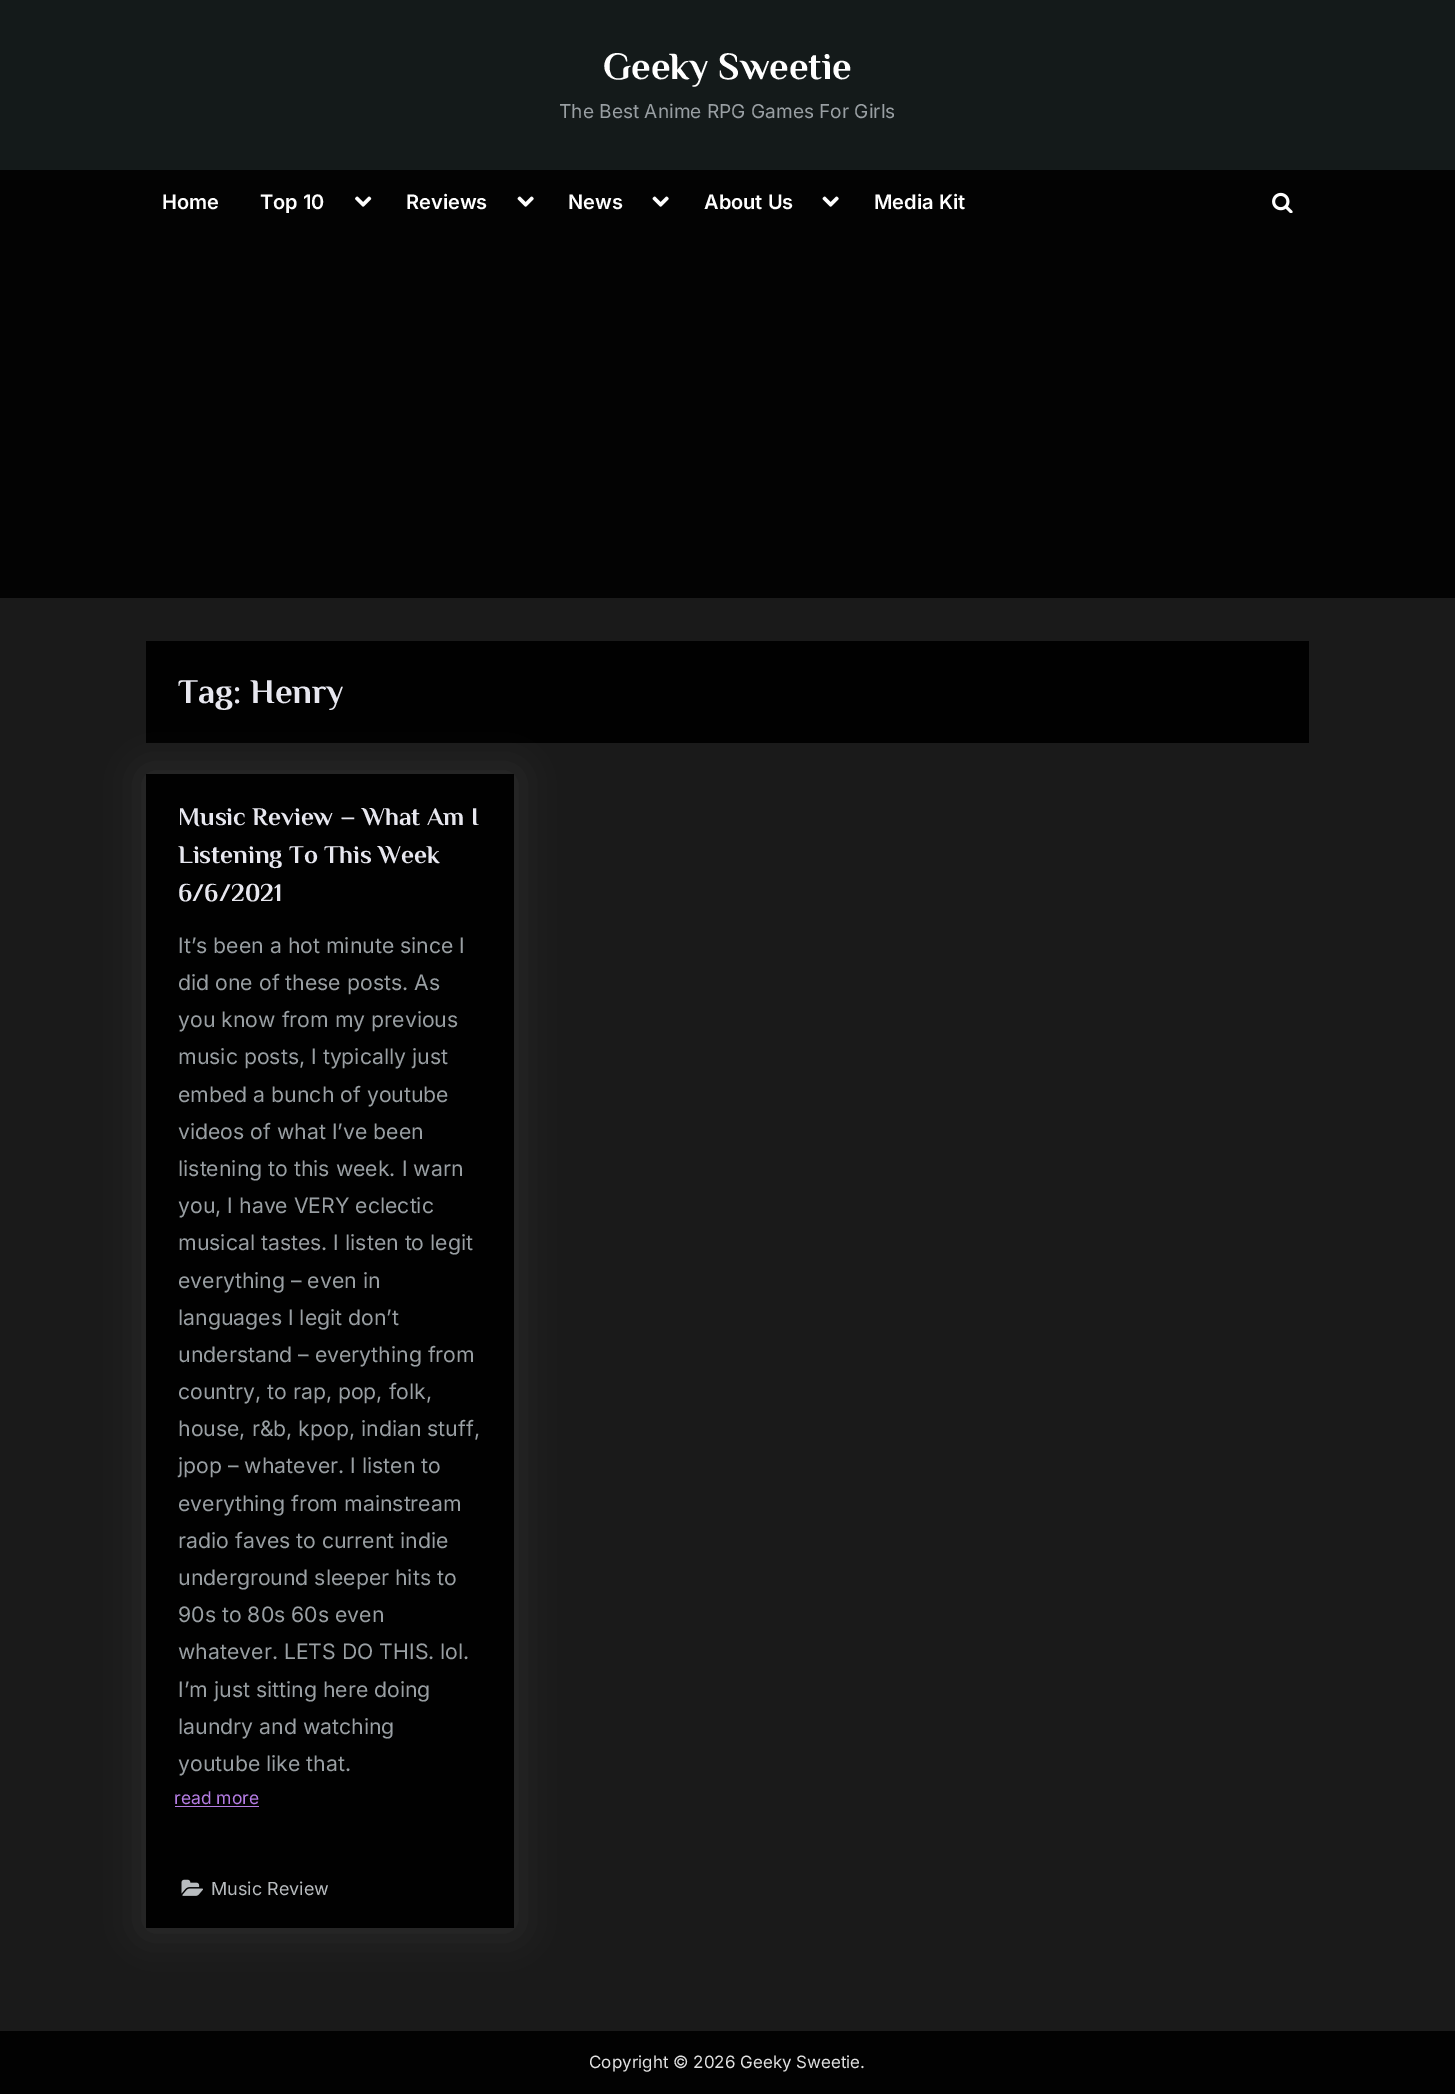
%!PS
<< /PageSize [1455 2094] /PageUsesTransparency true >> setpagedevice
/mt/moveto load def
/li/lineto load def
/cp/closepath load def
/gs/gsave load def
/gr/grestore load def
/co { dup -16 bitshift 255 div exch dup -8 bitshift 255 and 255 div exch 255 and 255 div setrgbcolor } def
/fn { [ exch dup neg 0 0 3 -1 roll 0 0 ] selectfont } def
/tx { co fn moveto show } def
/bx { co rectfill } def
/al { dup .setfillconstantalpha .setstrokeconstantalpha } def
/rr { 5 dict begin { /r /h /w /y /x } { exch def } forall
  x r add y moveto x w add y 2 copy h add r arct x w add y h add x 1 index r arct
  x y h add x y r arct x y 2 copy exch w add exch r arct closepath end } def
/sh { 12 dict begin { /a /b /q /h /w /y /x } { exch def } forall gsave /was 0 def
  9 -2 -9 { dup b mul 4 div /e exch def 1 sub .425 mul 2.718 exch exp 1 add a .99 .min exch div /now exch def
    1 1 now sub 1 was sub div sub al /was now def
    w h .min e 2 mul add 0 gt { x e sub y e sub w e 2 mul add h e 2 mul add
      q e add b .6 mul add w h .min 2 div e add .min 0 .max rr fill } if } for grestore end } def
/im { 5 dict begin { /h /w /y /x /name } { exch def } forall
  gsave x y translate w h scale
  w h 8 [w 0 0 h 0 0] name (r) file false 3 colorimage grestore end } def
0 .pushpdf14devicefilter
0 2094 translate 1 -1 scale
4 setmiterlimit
0 0 1455 2094 16#1A1A1A bx
0 0 1455 170 16#141A1A bx
0 170 1455 428 16#030303 bx
(media/1.raw) 355 196 17 11 im
(media/2.raw) 517 196 17 11 im
(media/2.raw) 652 196 17 11 im
(media/2.raw) 822 196 17 11 im
(media/3.raw) 1272 192 21 21 im
146 641 1163 102 16#010101 bx
gs
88 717 mt 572 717 li 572 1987 li 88 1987 li cp 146 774 mt 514 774 li 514 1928 li 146 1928 li cp eoclip newpath
16#FFFFFF co
146 775 368 1154 0 19 .09 sh
gr
0.97 al
146 774 368 1154 16#000000 bx
1 al
175 1806 84 1 16#B57DE3 bx
(media/4.raw) 181 1879 22 17 im
0 2031 1455 63 16#020202 bx
(Geeky Sweetie) 603 79 /Philosopher-Bold 38.25 16#FFFFFF tx
(The Best Anime RPG Games For Girls) 559 118 /Inter-Regular 19.1 16#999FA3 tx
(Home) 162 209 /Inter-SemiBold 20 16#FFFFFF tx
(Top 10) 260 209 /Inter-SemiBold 20 16#FFFFFF tx
(Reviews) 406 209 /Inter-SemiBold 20 16#FFFFFF tx
(News) 568 209 /Inter-SemiBold 20 16#FFFFFF tx
(About Us) 704 209 /Inter-SemiBold 20 16#FFFFFF tx
(Media Kit) 874 209 /Inter-SemiBold 20 16#FFFFFF tx
(Tag: Henry) 178 703 /Philosopher-Bold 34.5 16#E7E7EF tx
(Music Review – What Am I) 178 825 /Philosopher-Bold 25.5 16#E7E7EF tx
(Listening To This Week) 178 863 /Philosopher-Bold 25.5 16#E7E7EF tx
(6/6/2021) 178 901 /Philosopher-Bold 25.5 16#E7E7EF tx
(It’s been a hot minute since I) 178 953 /Inter-Regular 21.25 16#999FA3 tx
(did one of these posts. As) 178 990 /Inter-Regular 21.25 16#999FA3 tx
(you know from my previous) 178 1027 /Inter-Regular 21.25 16#999FA3 tx
(music posts, I typically just) 178 1064 /Inter-Regular 21.25 16#999FA3 tx
(embed a bunch of youtube) 178 1102 /Inter-Regular 21.25 16#999FA3 tx
(videos of what I’ve been) 178 1139 /Inter-Regular 21.25 16#999FA3 tx
(listening to this week. I warn) 178 1176 /Inter-Regular 21.25 16#999FA3 tx
(you, I have VERY eclectic) 178 1213 /Inter-Regular 21.25 16#999FA3 tx
(musical tastes. I listen to legit) 178 1250 /Inter-Regular 21.25 16#999FA3 tx
(everything – even in) 178 1288 /Inter-Regular 21.25 16#999FA3 tx
(languages I legit don’t) 178 1325 /Inter-Regular 21.25 16#999FA3 tx
(understand – everything from) 178 1362 /Inter-Regular 21.25 16#999FA3 tx
(country, to rap, pop, folk,) 178 1399 /Inter-Regular 21.25 16#999FA3 tx
(house, r&b, kpop, indian stuff,) 178 1436 /Inter-Regular 21.25 16#999FA3 tx
(jpop – whatever. I listen to) 178 1473 /Inter-Regular 21.25 16#999FA3 tx
(everything from mainstream) 178 1511 /Inter-Regular 21.25 16#999FA3 tx
(radio faves to current indie) 178 1548 /Inter-Regular 21.25 16#999FA3 tx
(underground sleeper hits to) 178 1585 /Inter-Regular 21.25 16#999FA3 tx
(90s to 80s 60s even) 178 1622 /Inter-Regular 21.25 16#999FA3 tx
(whatever. LETS DO THIS. lol.) 178 1659 /Inter-Regular 21.25 16#999FA3 tx
(I’m just sitting here doing) 178 1697 /Inter-Regular 21.25 16#999FA3 tx
(laundry and watching) 178 1734 /Inter-Regular 21.25 16#999FA3 tx
(youtube like that.) 178 1771 /Inter-Regular 21.25 16#999FA3 tx
(read more) 174 1804 /Inter-Regular 17.5 16#B57DE3 tx
(Music Review) 211 1895 /Inter-Regular 18 16#B8BCBF tx
(Copyright © 2026 Geeky Sweetie.) 589 2068 /Inter-Regular 17 16#E1E1E1 tx
.poppdf14devicefilter showpage
